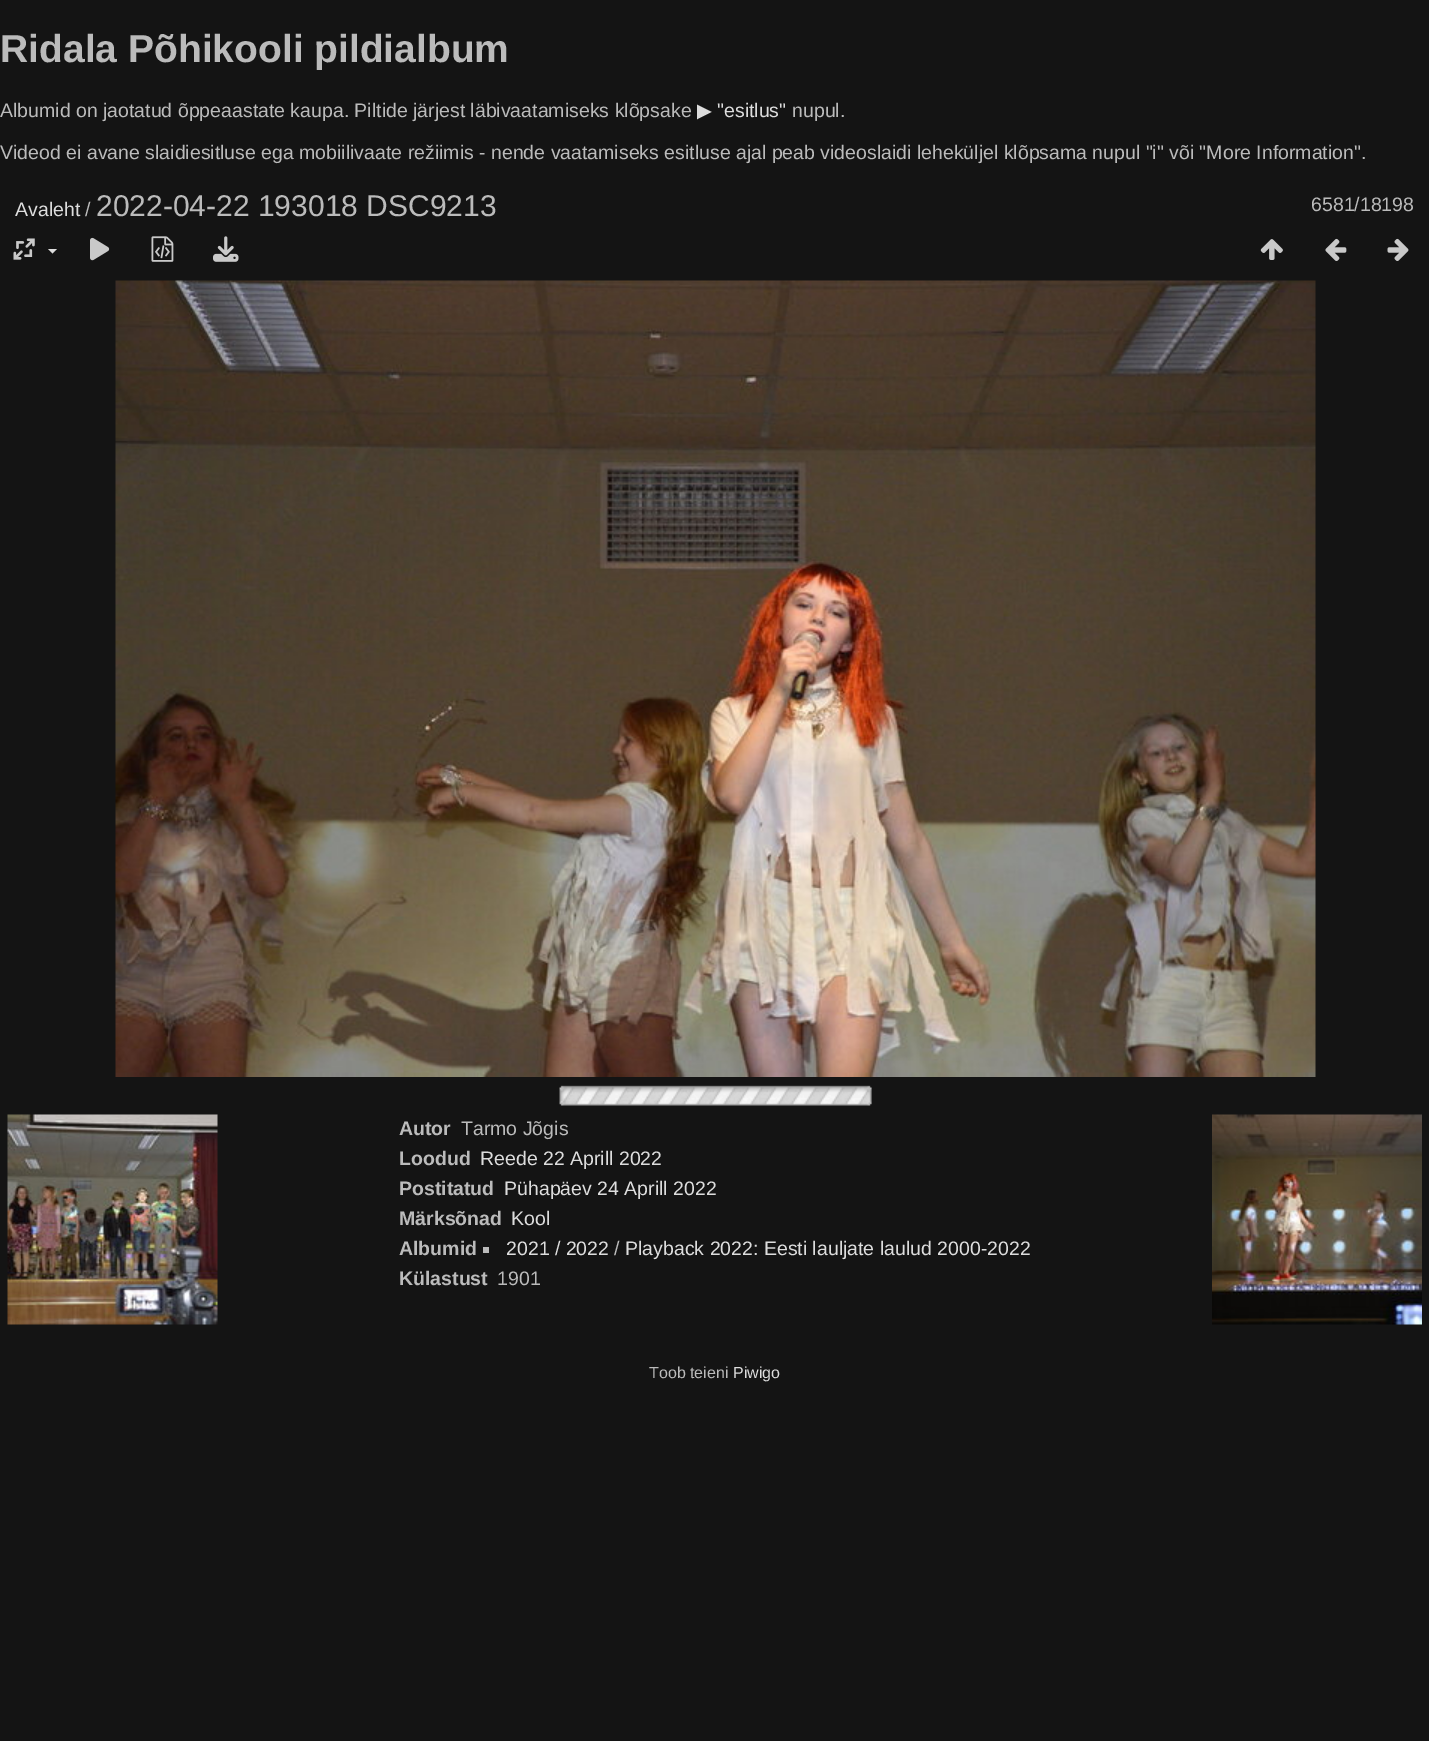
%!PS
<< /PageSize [1429 1741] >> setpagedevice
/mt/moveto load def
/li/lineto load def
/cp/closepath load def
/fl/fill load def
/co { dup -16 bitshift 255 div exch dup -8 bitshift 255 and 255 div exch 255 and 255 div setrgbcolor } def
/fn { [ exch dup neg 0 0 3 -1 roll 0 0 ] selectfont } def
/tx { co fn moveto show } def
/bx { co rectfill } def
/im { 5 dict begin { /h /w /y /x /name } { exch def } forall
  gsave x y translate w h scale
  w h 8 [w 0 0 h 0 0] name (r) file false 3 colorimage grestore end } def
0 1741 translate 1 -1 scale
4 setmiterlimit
0 0 1429 1741 16#141414 bx
(media/1.raw) 13 238 22 22 im
16#DDDDDD co
48 249 mt 57 249 li 52.5 253.5 li cp fl
(media/2.raw) 90 237 20 24 im
(media/3.raw) 151 236 23 26 im
(media/4.raw) 213 236 26 26 im
(media/5.raw) 1260 239 23 21 im
(media/6.raw) 1325 238 22 23 im
(media/7.raw) 1387 238 22 23 im
(media/8.raw) 115 280 1201 797 im
(media/9.raw) 559 1085 313 21 im
(media/10.raw) 7 1114 211 211 im
(media/11.raw) 1212 1114 210 211 im
483 1247 6 6 16#BBBBBB bx
(Ridala Põhikooli pildialbum) 0 62 /LiberationSans-Bold 39 16#BBBBBB tx
(Albumid on jaotatud õppeaastate kaupa. Piltide järjest läbivaatamiseks klõpsake) 0 117 /LiberationSans-Regular 19.5 16#BBBBBB tx
(▶) 697 117 /DejaVuSans-Regular 19.5 16#DDDDDD tx
("esitlus") 717 117 /LiberationSans-Regular 19.5 16#DDDDDD tx
(nupul.) 792 117 /LiberationSans-Regular 19.5 16#BBBBBB tx
(Videod ei avane slaidiesitluse ega mobiilivaate režiimis - nende vaatamiseks esitluse ajal peab videoslaidi leheküljel klõpsama nupul "i" või "More Information".) 0 159 /LiberationSans-Regular 19.5 16#BBBBBB tx
(Avaleht) 15 216 /LiberationSans-Regular 19.5 16#DDDDDD tx
(/) 85 216 /LiberationSans-Regular 19.5 16#BBBBBB tx
(2022-04-22 193018 DSC9213) 96 216 /LiberationSans-Regular 30 16#BBBBBB tx
(6581/18198) 1311 211 /LiberationSans-Regular 19.5 16#BBBBBB tx
(Autor) 399 1135 /LiberationSans-Bold 19.5 16#BBBBBB tx
(Tarmo Jõgis) 461 1135 /LiberationSans-Regular 19.5 16#BBBBBB tx
(Loodud) 399 1165 /LiberationSans-Bold 19.5 16#BBBBBB tx
(Reede 22 Aprill 2022) 480 1165 /LiberationSans-Regular 19.5 16#DDDDDD tx
(Postitatud) 399 1195 /LiberationSans-Bold 19.5 16#BBBBBB tx
(Pühapäev 24 Aprill 2022) 504 1195 /LiberationSans-Regular 19.5 16#DDDDDD tx
(Märksõnad) 399 1225 /LiberationSans-Bold 19.5 16#BBBBBB tx
(Kool) 511 1225 /LiberationSans-Regular 19.5 16#DDDDDD tx
(Albumid) 399 1255 /LiberationSans-Bold 19.5 16#BBBBBB tx
(2021 / 2022) 506 1255 /LiberationSans-Regular 19.5 16#DDDDDD tx
(/) 614 1255 /LiberationSans-Regular 19.5 16#BBBBBB tx
(Playback 2022: Eesti lauljate laulud 2000-2022) 625 1255 /LiberationSans-Regular 19.5 16#DDDDDD tx
(Külastust) 399 1285 /LiberationSans-Bold 19.5 16#BBBBBB tx
(1901) 497 1285 /LiberationSans-Regular 19.5 16#BBBBBB tx
(Toob teieni) 649 1378 /LiberationSans-Regular 16 16#BBBBBB tx
(Piwigo) 733 1378 /LiberationSans-Regular 16 16#DDDDDD tx
showpage
